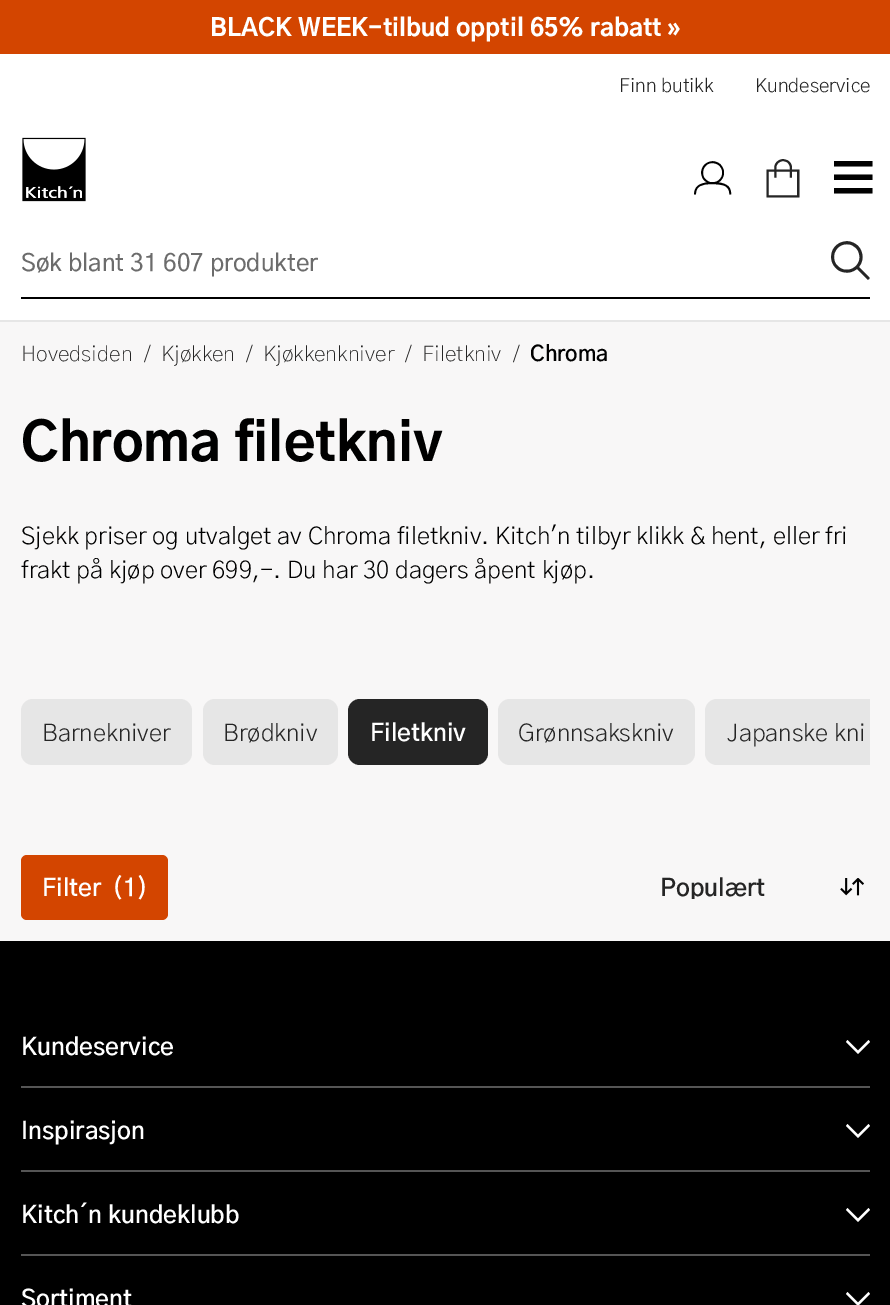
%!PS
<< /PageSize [890 1305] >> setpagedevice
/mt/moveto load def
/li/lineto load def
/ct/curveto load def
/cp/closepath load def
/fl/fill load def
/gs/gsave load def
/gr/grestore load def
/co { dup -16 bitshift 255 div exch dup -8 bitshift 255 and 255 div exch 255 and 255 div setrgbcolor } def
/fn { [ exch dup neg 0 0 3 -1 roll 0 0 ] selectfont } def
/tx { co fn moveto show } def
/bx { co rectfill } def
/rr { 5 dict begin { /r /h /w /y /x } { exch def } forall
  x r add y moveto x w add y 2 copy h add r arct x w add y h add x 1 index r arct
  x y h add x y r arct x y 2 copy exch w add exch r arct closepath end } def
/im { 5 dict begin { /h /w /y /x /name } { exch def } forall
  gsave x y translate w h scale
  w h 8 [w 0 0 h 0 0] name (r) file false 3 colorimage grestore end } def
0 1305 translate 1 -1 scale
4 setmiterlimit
0 0 890 1305 16#F8F7F7 bx
0 0 890 54 16#D34500 bx
0 54 890 266 16#FFFFFF bx
0 320 890 2 16#E6E6E6 bx
(media/1.raw) 22 137 64 65 im
16#000000 co
834 161 mt 872.5 161 li 872.5 166.5 li 834 166.5 li cp 834 174.5 mt 872.5 174.5 li 872.5 180 li 834 180 li cp 834 188 mt 872.5 188 li 872.5 193.5 li 834 193.5 li cp fl
21 297 849 2 16#000000 bx
16#E6E6E6 co
21 699 171 66 12 rr fl
203 699 135 66 12 rr fl
16#252525 co
348 699 140 66 12 rr fl
16#E6E6E6 co
498 699 197 66 12 rr fl
717 699 mt 870 699 li 870 765 li 717 765 li 710.5 765 705 759.5 705 753 ct 705 711 li 705 704.5 710.5 699 717 699 ct cp fl
16#D34500 co
21 855 147 65 6 rr fl
(media/2.raw) 840 878 24 18 im
0 941 890 364 16#000000 bx
16#FFFFFF co
858 1054 mt 870 1042 li 868.5 1040 li 858 1050.5 li 847.5 1040 li 846 1042 li cp fl
21 1086 849 2 16#555555 bx
16#FFFFFF co
858 1138 mt 870 1126 li 868.5 1124 li 858 1134.5 li 847.5 1124 li 846 1126 li cp fl
21 1170 849 2 16#555555 bx
16#FFFFFF co
858 1222 mt 870 1210 li 868.5 1208 li 858 1218.5 li 847.5 1208 li 846 1210 li cp fl
21 1254 849 2 16#555555 bx
16#FFFFFF co
858 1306 mt 870 1294 li 868.5 1292 li 858 1302.5 li 847.5 1292 li 846 1294 li cp fl
(BLACK WEEK-tilbud opptil 65% rabatt ») 210 36 /GothicA1-ExtraBold 24 16#FFFFFF tx
(Finn butikk) 619 92 /GothicA1-Light 19.25 16#252525 tx
(Kundeservice) 755 92 /GothicA1-Light 19.25 16#252525 tx
(_) 694 197 /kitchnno-Regular 38 16#000000 tx
(`) 764 197 /kitchnno-Regular 38 16#252525 tx
(Søk blant 31 607 produkter) 21 271 /GothicA1-Medium 24 16#6C6C6C tx
/kitchnno-Regular 38 fn
16#252525 co
831 279 mt 1 0 (p) ashow
(Hovedsiden) 21 361 /GothicA1-ExtraLight 21.5 16#252525 tx
(/) 144 361 /GothicA1-ExtraLight 21.5 16#252525 tx
(Kjøkken) 161 361 /GothicA1-ExtraLight 21.5 16#252525 tx
(/) 246 361 /GothicA1-ExtraLight 21.5 16#252525 tx
(Kjøkkenkniver) 263 361 /GothicA1-ExtraLight 21.5 16#252525 tx
(/) 405 361 /GothicA1-ExtraLight 21.5 16#252525 tx
(Filetkniv) 422 361 /GothicA1-ExtraLight 21.5 16#252525 tx
(/) 513 361 /GothicA1-ExtraLight 21.5 16#252525 tx
(Chroma) 530 361 /GothicA1-SemiBold 21.5 16#000000 tx
(Chroma filetkniv) 21 461 /GothicA1-ExtraBold 52.75 16#000000 tx
(Sjekk priser og utvalget av Chroma filetkniv. Kitch'n tilbyr klikk & hent, eller fri) 21 544 /GothicA1-Light 24 16#000000 tx
(frakt på kjøp over 699,-. Du har 30 dagers åpent kjøp.) 21 578 /GothicA1-Light 24 16#000000 tx
(Barnekniver) 42 741 /GothicA1-Light 24 16#252525 tx
(Brødkniv) 223 741 /GothicA1-Light 24 16#252525 tx
(Filetkniv) 370 741 /GothicA1-SemiBold 24 16#FFFFFF tx
(Grønnsakskniv) 518 741 /GothicA1-Light 24 16#252525 tx
(Japanske kni) 727 741 /GothicA1-Light 24 16#252525 tx
(Filter) 42 896 /GothicA1-SemiBold 24 16#FFFFFF tx
(\(1\)) 112 896 /GothicA1-SemiBold 24 16#FFFFFF tx
gs
660 875 168 24 rectclip
(Populært) 660 896 /GothicA1-SemiBold 24 16#252525 tx
gr
(Kundeservice) 21 1055 /GothicA1-SemiBold 24 16#FFFFFF tx
(Inspirasjon) 21 1139 /GothicA1-SemiBold 24 16#FFFFFF tx
(Kitch´n kundeklubb) 21 1223 /GothicA1-SemiBold 24 16#FFFFFF tx
(Sortiment) 21 1307 /GothicA1-SemiBold 24 16#FFFFFF tx
showpage
